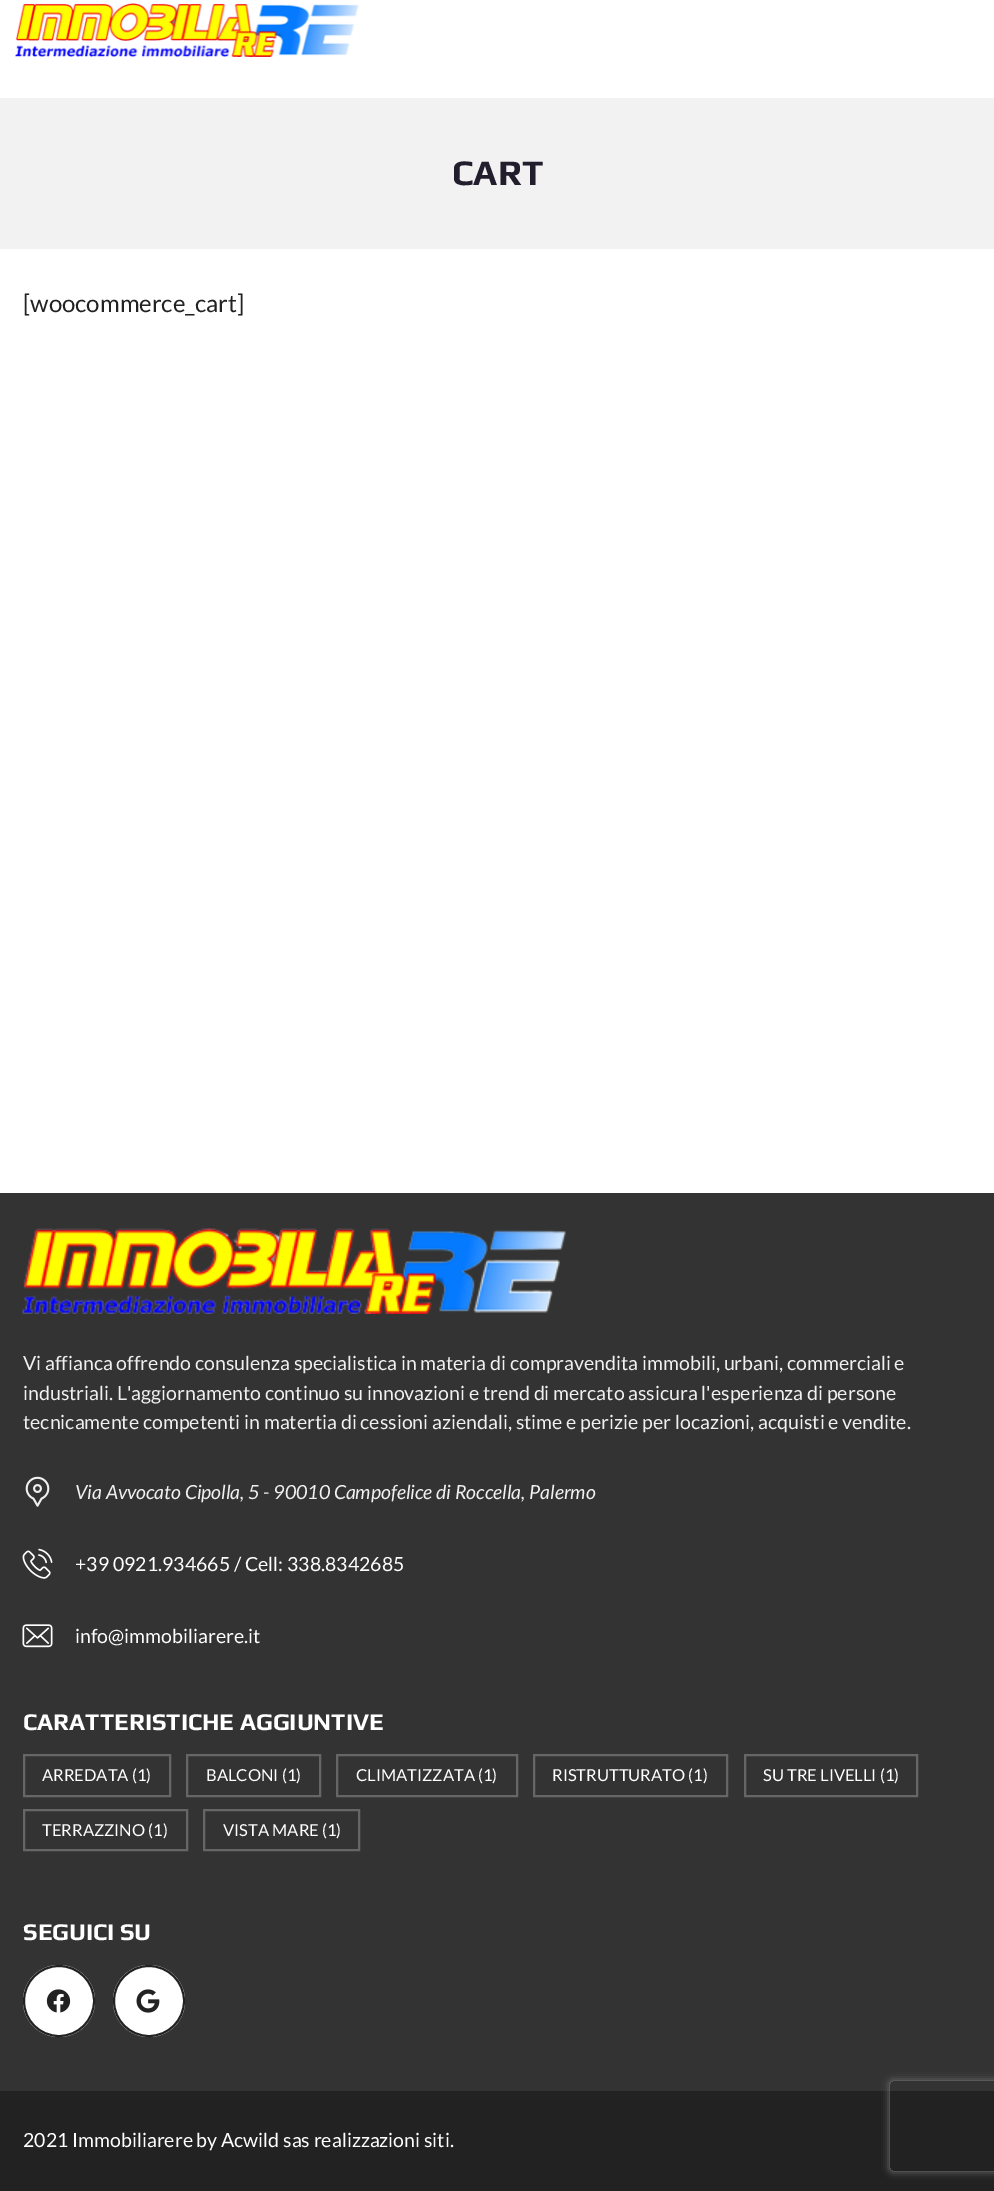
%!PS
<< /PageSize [994 2191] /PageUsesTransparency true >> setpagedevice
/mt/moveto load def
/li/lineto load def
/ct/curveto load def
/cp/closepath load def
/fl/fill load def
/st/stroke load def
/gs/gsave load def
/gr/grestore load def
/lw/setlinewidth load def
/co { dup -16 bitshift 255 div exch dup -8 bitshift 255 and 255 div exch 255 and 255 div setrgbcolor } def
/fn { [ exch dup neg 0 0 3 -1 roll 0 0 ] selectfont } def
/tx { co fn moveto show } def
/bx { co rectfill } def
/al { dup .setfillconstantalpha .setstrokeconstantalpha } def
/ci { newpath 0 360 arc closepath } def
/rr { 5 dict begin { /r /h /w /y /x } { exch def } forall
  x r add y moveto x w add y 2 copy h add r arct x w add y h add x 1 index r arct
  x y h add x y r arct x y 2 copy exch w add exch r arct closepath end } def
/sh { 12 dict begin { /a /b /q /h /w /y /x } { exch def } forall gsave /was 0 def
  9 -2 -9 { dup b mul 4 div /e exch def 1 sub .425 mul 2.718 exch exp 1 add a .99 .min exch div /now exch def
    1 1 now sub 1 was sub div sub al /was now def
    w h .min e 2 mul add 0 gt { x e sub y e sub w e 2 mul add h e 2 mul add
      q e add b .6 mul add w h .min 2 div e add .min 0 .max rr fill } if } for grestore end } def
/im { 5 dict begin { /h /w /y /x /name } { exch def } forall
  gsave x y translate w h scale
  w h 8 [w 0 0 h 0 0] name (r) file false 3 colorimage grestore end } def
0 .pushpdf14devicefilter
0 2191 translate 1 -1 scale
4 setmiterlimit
0 0 994 2191 16#FFFFFF bx
(media/1.raw) 15 3 344 54 im
0 98 994 151 16#F2F2F2 bx
0 1193 994 898 16#333333 bx
(media/2.raw) 22 1228 544 86 im
(media/3.raw) 25 1476 25 31 im
(media/4.raw) 22 1548 31 31 im
(media/5.raw) 22 1624 31 24 im
16#666666 co
2 lw
24 1755 146 41 rectstroke
187 1755 133 41 rectstroke
337 1755 180 41 rectstroke
534 1755 193 41 rectstroke
745 1755 172 41 rectstroke
24 1810 163 40 rectstroke
204 1810 155 40 rectstroke
16#FFFFFF co
59 2001 36 ci fl
(media/6.raw) 46 1989 25 24 im
16#222222 co
59 2001 35 ci st
16#FFFFFF co
149 2001 36 ci fl
(media/7.raw) 136 1989 24 24 im
16#222222 co
149 2001 35 ci st
0 2091 994 100 16#222222 bx
gs
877 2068 mt 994 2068 li 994 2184 li 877 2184 li cp 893 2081 mt 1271 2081 li 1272.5 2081 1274 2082.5 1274 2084 ct 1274 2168 li 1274 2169.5 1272.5 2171 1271 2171 ct 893 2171 li 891.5 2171 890 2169.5 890 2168 ct 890 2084 li 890 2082.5 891.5 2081 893 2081 ct cp eoclip newpath
16#808080 co
890 2081 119 90 3 4 1 sh
gr
(CART) 452 185 /Play-Bold 36 16#231E2E tx
([woocommerce_cart]) 23 312 /Lato-Regular 24 16#222222 tx
(Vi affianca offrendo consulenza specialistica in materia di compravendita immobili, urbani, commerciali e) 23 1370 /Lato-Regular 19.5 16#F0F0F0 tx
(industriali. L'aggiornamento continuo su innovazioni e trend di mercato assicura l'esperienza di persone) 23 1400 /Lato-Regular 19.5 16#F0F0F0 tx
(tecnicamente competenti in matertia di cessioni aziendali, stime e perizie per locazioni, acquisti e vendite.) 23 1429 /Lato-Regular 19.5 16#F0F0F0 tx
(Via Avvocato Cipolla, 5 - 90010 Campofelice di Roccella, Palermo) 75 1499 /Lato-Italic 19.5 16#F0F0F0 tx
(+39 0921.934665 / Cell: 338.8342685) 75 1571 /Lato-Regular 19.5 16#FFFFFF tx
(info@immobiliarere.it) 75 1643 /Lato-Regular 19.5 16#FFFFFF tx
(CARATTERISTICHE AGGIUNTIVE) 23 1730 /Play-Bold 24 16#FFFFFF tx
(ARREDATA \(1\)) 42 1781 /Lato-Regular 16.5 16#FFFFFF tx
(BALCONI \(1\)) 206 1781 /Lato-Regular 16.5 16#FFFFFF tx
(CLIMATIZZATA \(1\)) 356 1781 /Lato-Regular 16.5 16#FFFFFF tx
(RISTRUTTURATO \(1\)) 552 1781 /Lato-Regular 16.5 16#FFFFFF tx
(SU TRE LIVELLI \(1\)) 763 1781 /Lato-Regular 16.5 16#FFFFFF tx
(TERRAZZINO \(1\)) 42 1836 /Lato-Regular 16.5 16#FFFFFF tx
(VISTA MARE \(1\)) 223 1836 /Lato-Regular 16.5 16#FFFFFF tx
(SEGUICI SU) 23 1940 /Play-Bold 24 16#FFFFFF tx
(2021 Immobiliarere by Acwild sas realizzazioni siti.) 23 2147 /Lato-Regular 19.5 16#FFFFFF tx
.poppdf14devicefilter showpage
